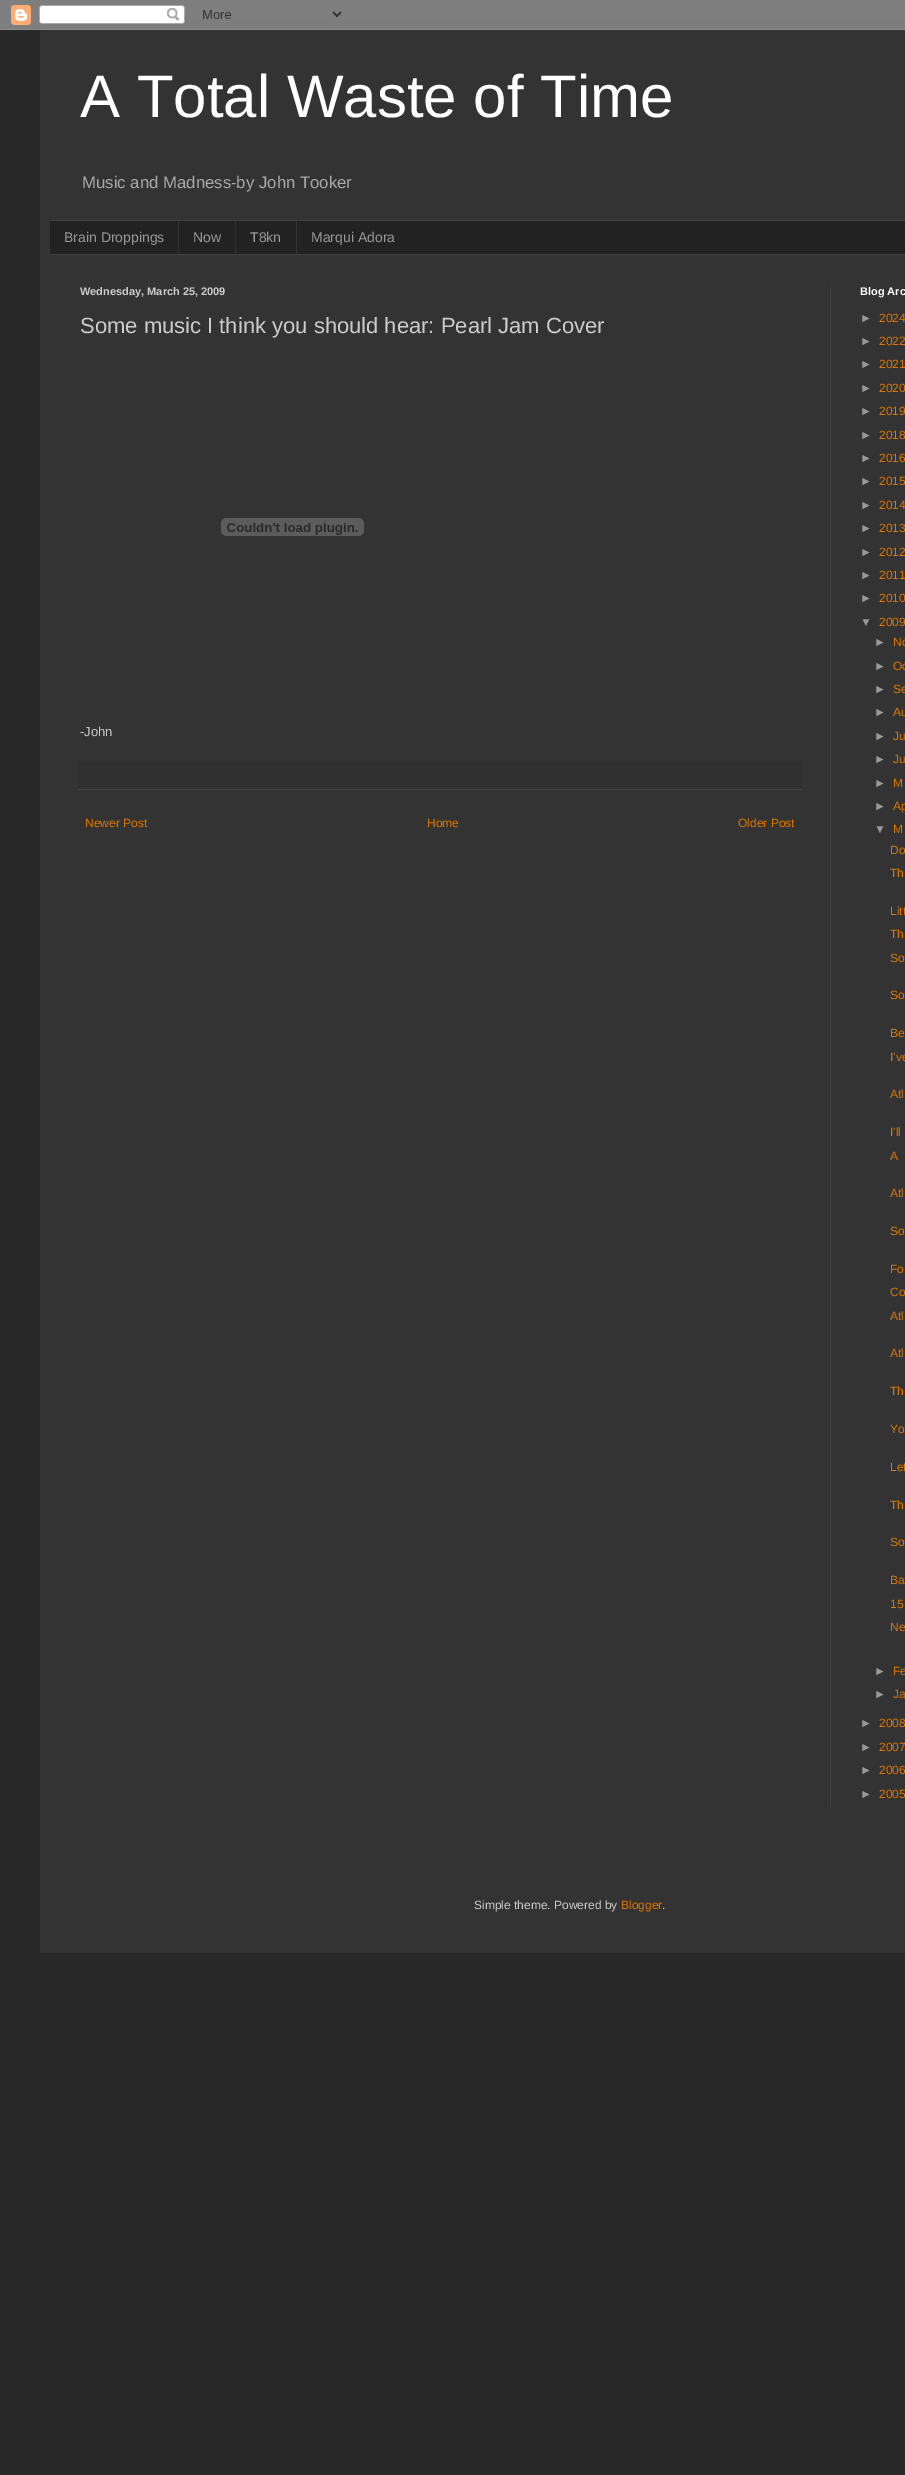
%!PS
<< /PageSize [905 2475] >> setpagedevice
/co { dup -16 bitshift 255 div exch dup -8 bitshift 255 and 255 div exch 255 and 255 div setrgbcolor } def
/fn { [ exch dup neg 0 0 3 -1 roll 0 0 ] selectfont } def
/tx { co fn moveto show } def
/bx { co rectfill } def
/im { 5 dict begin { /h /w /y /x /name } { exch def } forall
  gsave x y translate w h scale
  w h 8 [w 0 0 h 0 0] name (r) file false 3 colorimage grestore end } def
0 2475 translate 1 -1 scale
4 setmiterlimit
0 0 905 2475 16#292929 bx
(media/1.raw) 0 0 905 30 im
40 30 865 1923 16#333333 bx
50 221 855 33 16#222222 bx
50 220 855 1 16#404040 bx
50 254 855 1 16#404040 bx
178 221 1 33 16#333333 bx
235 221 1 33 16#333333 bx
296 221 1 33 16#333333 bx
830 285 1 1522 16#404040 bx
(media/2.raw) 221 518 143 18 im
78 762 724 27 16#303030 bx
78 789 724 1 16#444444 bx
(A Total Waste of Time) 80 117 /LiberationSans-Regular 60 16#FFFFFF tx
(Music and Madness-by John Tooker) 82 188 /LiberationSans-Regular 16.75 16#AAAAAA tx
(Brain Droppings) 64 242 /LiberationSans-Regular 14 16#999999 tx
(Now) 193 242 /LiberationSans-Regular 14 16#999999 tx
(T8kn) 250 242 /LiberationSans-Regular 14 16#999999 tx
(Marqui Adora) 311 242 /LiberationSans-Regular 14 16#999999 tx
(Wednesday, March 25, 2009) 80 295 /LiberationSans-Bold 11 16#CCCCCC tx
(Some music I think you should hear: Pearl Jam Cover) 80 333 /LiberationSans-Regular 22 16#CCCCCC tx
(-John) 80 736 /LiberationSans-Regular 13 16#CCCCCC tx
(Newer Post) 85 827 /LiberationSans-Regular 12 16#DD7700 tx
(Home) 427 827 /LiberationSans-Regular 12 16#DD7700 tx
(Older Post) 738 827 /LiberationSans-Regular 12 16#DD7700 tx
(Blog Arc) 860 295 /LiberationSans-Bold 11 16#FFFFFF tx
(►) 860 322 /LiberationSans-Regular 12 16#999999 tx
(2024) 879 322 /LiberationSans-Regular 12 16#DD7700 tx
(►) 860 345 /LiberationSans-Regular 12 16#999999 tx
(2022) 879 345 /LiberationSans-Regular 12 16#DD7700 tx
(►) 860 368 /LiberationSans-Regular 12 16#999999 tx
(2021) 879 368 /LiberationSans-Regular 12 16#DD7700 tx
(►) 860 392 /LiberationSans-Regular 12 16#999999 tx
(2020) 879 392 /LiberationSans-Regular 12 16#DD7700 tx
(►) 860 415 /LiberationSans-Regular 12 16#999999 tx
(2019) 879 415 /LiberationSans-Regular 12 16#DD7700 tx
(►) 860 439 /LiberationSans-Regular 12 16#999999 tx
(2018) 879 439 /LiberationSans-Regular 12 16#DD7700 tx
(►) 860 462 /LiberationSans-Regular 12 16#999999 tx
(2016) 879 462 /LiberationSans-Regular 12 16#DD7700 tx
(►) 860 485 /LiberationSans-Regular 12 16#999999 tx
(2015) 879 485 /LiberationSans-Regular 12 16#DD7700 tx
(►) 860 509 /LiberationSans-Regular 12 16#999999 tx
(2014) 879 509 /LiberationSans-Regular 12 16#DD7700 tx
(►) 860 532 /LiberationSans-Regular 12 16#999999 tx
(2013) 879 532 /LiberationSans-Regular 12 16#DD7700 tx
(►) 860 556 /LiberationSans-Regular 12 16#999999 tx
(2012) 879 556 /LiberationSans-Regular 12 16#DD7700 tx
(►) 860 579 /LiberationSans-Regular 12 16#999999 tx
(2011) 879 579 /LiberationSans-Regular 12 16#DD7700 tx
(►) 860 602 /LiberationSans-Regular 12 16#999999 tx
(2010) 879 602 /LiberationSans-Regular 12 16#DD7700 tx
(▼) 860 626 /LiberationSans-Regular 12 16#999999 tx
(2009) 879 626 /LiberationSans-Regular 12 16#DD7700 tx
(►) 874 646 /LiberationSans-Regular 12 16#999999 tx
(No) 893 646 /LiberationSans-Regular 12 16#DD7700 tx
(►) 874 670 /LiberationSans-Regular 12 16#999999 tx
(Oc) 893 670 /LiberationSans-Regular 12 16#DD7700 tx
(►) 874 693 /LiberationSans-Regular 12 16#999999 tx
(Se) 893 693 /LiberationSans-Regular 12 16#DD7700 tx
(►) 874 716 /LiberationSans-Regular 12 16#999999 tx
(Au) 893 716 /LiberationSans-Regular 12 16#DD7700 tx
(►) 874 740 /LiberationSans-Regular 12 16#999999 tx
(Ju) 893 740 /LiberationSans-Regular 12 16#DD7700 tx
(►) 874 763 /LiberationSans-Regular 12 16#999999 tx
(Ju) 893 763 /LiberationSans-Regular 12 16#DD7700 tx
(►) 874 787 /LiberationSans-Regular 12 16#999999 tx
(M) 893 787 /LiberationSans-Regular 12 16#DD7700 tx
(►) 874 810 /LiberationSans-Regular 12 16#999999 tx
(Ap) 893 810 /LiberationSans-Regular 12 16#DD7700 tx
(▼) 874 833 /LiberationSans-Regular 12 16#999999 tx
(M) 893 833 /LiberationSans-Regular 12 16#DD7700 tx
(Do) 890 854 /LiberationSans-Regular 12 16#DD7700 tx
(Th) 890 877 /LiberationSans-Regular 12 16#DD7700 tx
(Litt) 890 915 /LiberationSans-Regular 12 16#DD7700 tx
(Th) 890 938 /LiberationSans-Regular 12 16#DD7700 tx
(So) 890 962 /LiberationSans-Regular 12 16#DD7700 tx
(So) 890 999 /LiberationSans-Regular 12 16#DD7700 tx
(Be) 890 1037 /LiberationSans-Regular 12 16#DD7700 tx
(I've) 890 1061 /LiberationSans-Regular 12 16#DD7700 tx
(Atl) 890 1098 /LiberationSans-Regular 12 16#DD7700 tx
(I'll) 890 1136 /LiberationSans-Regular 12 16#DD7700 tx
(A) 890 1160 /LiberationSans-Regular 12 16#DD7700 tx
(Atl) 890 1197 /LiberationSans-Regular 12 16#DD7700 tx
(So) 890 1235 /LiberationSans-Regular 12 16#DD7700 tx
(Fo) 890 1273 /LiberationSans-Regular 12 16#DD7700 tx
(Co) 890 1296 /LiberationSans-Regular 12 16#DD7700 tx
(Atl) 890 1320 /LiberationSans-Regular 12 16#DD7700 tx
(Atl) 890 1357 /LiberationSans-Regular 12 16#DD7700 tx
(Th) 890 1395 /LiberationSans-Regular 12 16#DD7700 tx
(Yo) 890 1433 /LiberationSans-Regular 12 16#DD7700 tx
(Let) 890 1471 /LiberationSans-Regular 12 16#DD7700 tx
(Th) 890 1509 /LiberationSans-Regular 12 16#DD7700 tx
(So) 890 1546 /LiberationSans-Regular 12 16#DD7700 tx
(Ba) 890 1584 /LiberationSans-Regular 12 16#DD7700 tx
(15) 890 1608 /LiberationSans-Regular 12 16#DD7700 tx
(Ne) 890 1631 /LiberationSans-Regular 12 16#DD7700 tx
(►) 874 1675 /LiberationSans-Regular 12 16#999999 tx
(Fe) 893 1675 /LiberationSans-Regular 12 16#DD7700 tx
(►) 874 1698 /LiberationSans-Regular 12 16#999999 tx
(Ja) 893 1698 /LiberationSans-Regular 12 16#DD7700 tx
(►) 860 1727 /LiberationSans-Regular 12 16#999999 tx
(2008) 879 1727 /LiberationSans-Regular 12 16#DD7700 tx
(►) 860 1751 /LiberationSans-Regular 12 16#999999 tx
(2007) 879 1751 /LiberationSans-Regular 12 16#DD7700 tx
(►) 860 1774 /LiberationSans-Regular 12 16#999999 tx
(2006) 879 1774 /LiberationSans-Regular 12 16#DD7700 tx
(►) 860 1798 /LiberationSans-Regular 12 16#999999 tx
(2005) 879 1798 /LiberationSans-Regular 12 16#DD7700 tx
(Simple theme. Powered by) 474 1909 /LiberationSans-Regular 12 16#CCCCCC tx
(Blogger) 621 1909 /LiberationSans-Regular 12 16#DD7700 tx
(.) 662 1909 /LiberationSans-Regular 12 16#CCCCCC tx
showpage
